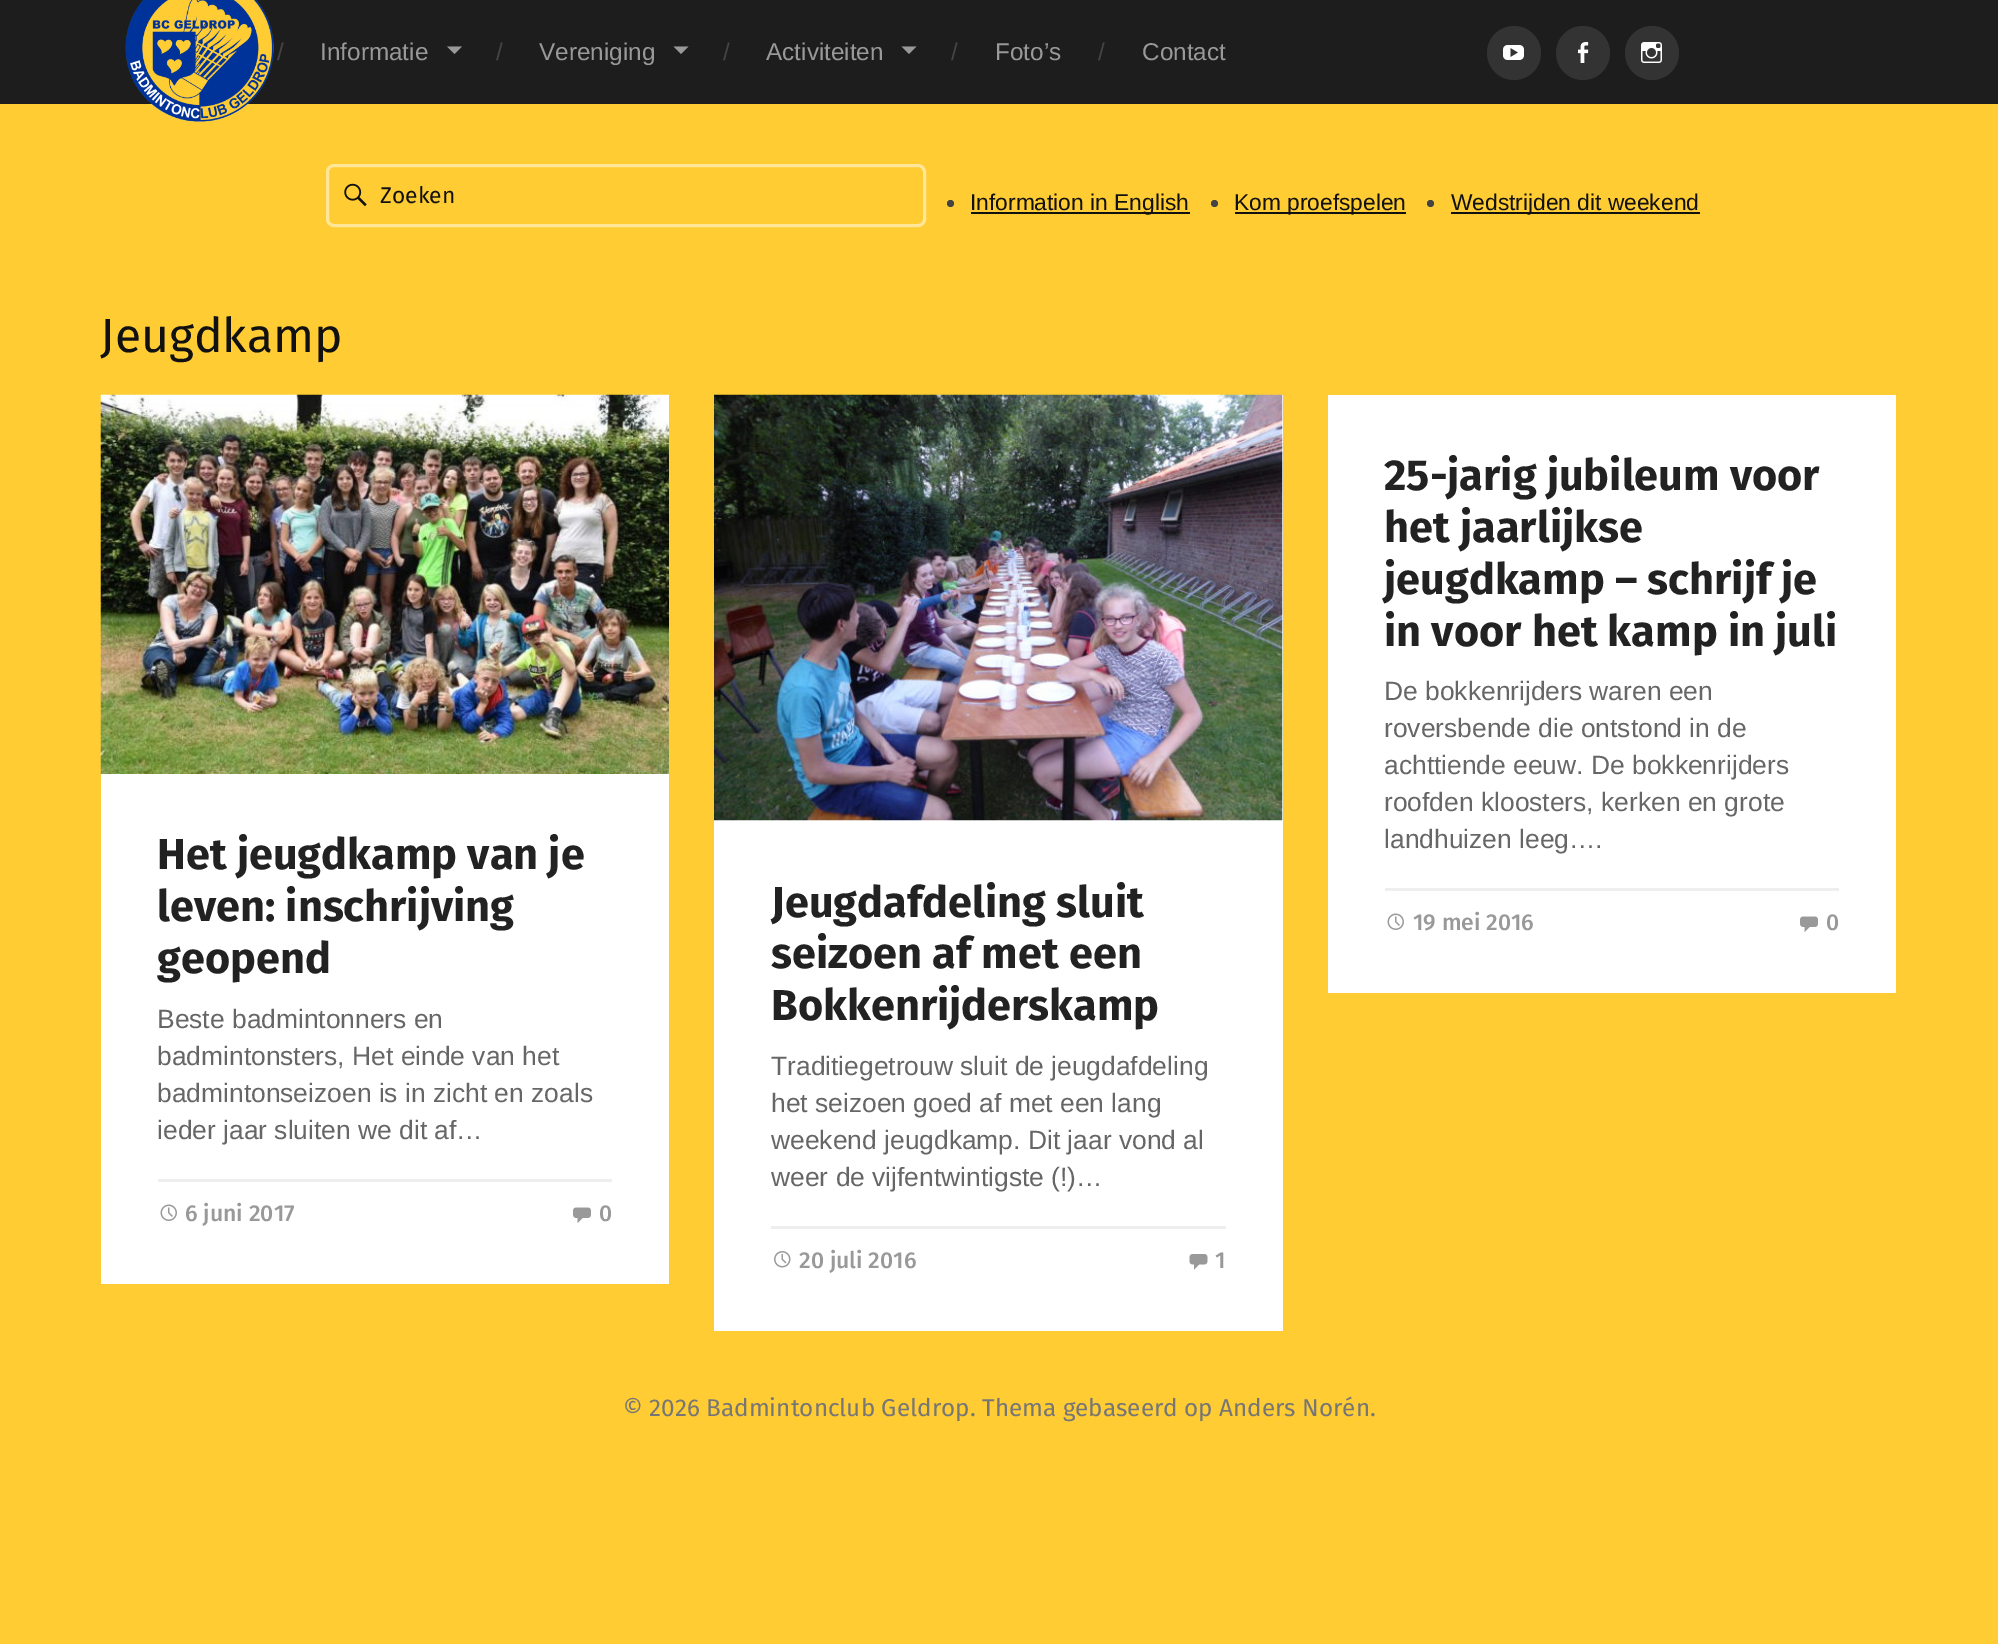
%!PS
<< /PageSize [1998 1644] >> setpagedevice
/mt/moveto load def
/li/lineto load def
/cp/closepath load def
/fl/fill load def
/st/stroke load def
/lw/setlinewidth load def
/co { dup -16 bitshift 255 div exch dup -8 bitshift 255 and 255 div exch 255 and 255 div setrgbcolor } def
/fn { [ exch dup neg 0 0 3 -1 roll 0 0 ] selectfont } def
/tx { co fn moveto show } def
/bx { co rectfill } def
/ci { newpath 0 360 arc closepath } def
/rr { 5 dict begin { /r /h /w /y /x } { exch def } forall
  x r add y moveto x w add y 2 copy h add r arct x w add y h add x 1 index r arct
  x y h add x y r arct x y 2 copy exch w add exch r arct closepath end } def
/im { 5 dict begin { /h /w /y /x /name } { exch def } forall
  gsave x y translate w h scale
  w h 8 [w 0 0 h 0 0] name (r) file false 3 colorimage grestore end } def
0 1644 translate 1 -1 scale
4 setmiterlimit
0 0 1998 1644 16#FFCC33 bx
0 0 1998 104 16#1D1D1D bx
(media/1.raw) 125 0 149 122 im
16#999999 co
447 46.5 mt 462 46.5 li 454.5 54 li cp fl
673.5 46.5 mt 688.5 46.5 li 681 54 li cp fl
901.5 46.5 mt 916.5 46.5 li 909 54 li cp fl
16#333333 co
1514 53 27 ci fl
(media/2.raw) 1503 45 21 15 im
1583 53 27 ci fl
(media/3.raw) 1578 42 11 21 im
1652 53 27 ci fl
(media/4.raw) 1641 42 21 21 im
16#FFE699 co
3 lw
327.5 165.5 597 60 6.5 rr st
(media/5.raw) 344 183 23 24 im
16#444444 co
950.5 203.5 3.5 ci fl
971 212 219 2 16#111111 bx
16#444444 co
1214.5 203.5 3.5 ci fl
1235 212 171 2 16#111111 bx
16#444444 co
1430.5 203.5 3.5 ci fl
1451 212 249 2 16#111111 bx
1328 395 568 598 16#FFFFFF bx
1385 888 454 3 16#EEEEEE bx
(media/6.raw) 1387 913 17 17 im
(media/7.raw) 1800 916 18 16 im
101 774 568 510 16#FFFFFF bx
(media/8.raw) 100 394 569 380 im
158 1179 454 3 16#EEEEEE bx
(media/6.raw) 160 1204 17 17 im
(media/7.raw) 573 1207 18 16 im
714 395 569 936 16#FFFFFF bx
(media/9.raw) 714 394 569 427 im
771 1226 455 3 16#EEEEEE bx
(media/10.raw) 774 1251 17 17 im
(media/11.raw) 1189 1254 19 16 im
(/) 277 60 /LiberationSans-Regular 24 16#444444 tx
(Informatie) 320 60 /LiberationSans-Regular 24.3 16#999999 tx
(/) 496 60 /LiberationSans-Regular 24 16#444444 tx
(Vereniging) 539 60 /LiberationSans-Regular 24.3 16#999999 tx
(/) 723 60 /LiberationSans-Regular 24 16#444444 tx
(Activiteiten) 766 60 /LiberationSans-Regular 24.3 16#999999 tx
(/) 951 60 /LiberationSans-Regular 24 16#444444 tx
(Foto’s) 995 60 /LiberationSans-Regular 24.3 16#999999 tx
(/) 1098 60 /LiberationSans-Regular 24 16#444444 tx
(Contact) 1142 60 /LiberationSans-Regular 24.3 16#999999 tx
(Zoeken) 380 203 /FiraSans-Regular 22.75 16#111111 tx
(Information in English) 970 210 /LiberationSans-Regular 22.75 16#111111 tx
(Kom proefspelen) 1234 210 /LiberationSans-Regular 22.75 16#111111 tx
(Wedstrijden dit weekend) 1451 210 /LiberationSans-Regular 22.75 16#111111 tx
(Jeugdkamp) 100 352 /FiraSans-Regular 48 16#111111 tx
(25-jarig jubileum voor) 1384 490 /FiraSans-Bold 43.25 16#222222 tx
(het jaarlijkse) 1384 542 /FiraSans-Bold 43.25 16#222222 tx
(jeugdkamp – schrijf je) 1384 594 /FiraSans-Bold 43.25 16#222222 tx
(in voor het kamp in juli) 1384 646 /FiraSans-Bold 43.25 16#222222 tx
(De bokkenrijders waren een) 1384 700 /LiberationSans-Regular 26.4 16#666666 tx
(roversbende die ontstond in de) 1384 737 /LiberationSans-Regular 26.4 16#666666 tx
(achttiende eeuw. De bokkenrijders) 1384 774 /LiberationSans-Regular 26.4 16#666666 tx
(roofden kloosters, kerken en grote) 1384 811 /LiberationSans-Regular 26.4 16#666666 tx
(landhuizen leeg….) 1384 848 /LiberationSans-Regular 26.4 16#666666 tx
(19 mei 2016) 1413 930 /FiraSans-Medium 23 16#999999 tx
(0) 1826 930 /FiraSans-Medium 23 16#999999 tx
(Het jeugdkamp van je) 157 869 /FiraSans-Bold 43.25 16#222222 tx
(leven: inschrijving) 157 921 /FiraSans-Bold 43.25 16#222222 tx
(geopend) 157 973 /FiraSans-Bold 43.25 16#222222 tx
(Beste badmintonners en) 157 1028 /LiberationSans-Regular 26.4 16#666666 tx
(badmintonsters, Het einde van het) 157 1065 /LiberationSans-Regular 26.4 16#666666 tx
(badmintonseizoen is in zicht en zoals) 157 1102 /LiberationSans-Regular 26.4 16#666666 tx
(ieder jaar sluiten we dit af…) 157 1139 /LiberationSans-Regular 26.4 16#666666 tx
(6 juni 2017) 185 1221 /FiraSans-Medium 23 16#999999 tx
(0) 599 1221 /FiraSans-Medium 23 16#999999 tx
(Jeugdafdeling sluit) 771 917 /FiraSans-Bold 43.25 16#222222 tx
(seizoen af met een) 771 968 /FiraSans-Bold 43.25 16#222222 tx
(Bokkenrijderskamp) 771 1020 /FiraSans-Bold 43.25 16#222222 tx
(Traditiegetrouw sluit de jeugdafdeling) 771 1075 /LiberationSans-Regular 26.4 16#666666 tx
(het seizoen goed af met een lang) 771 1112 /LiberationSans-Regular 26.4 16#666666 tx
(weekend jeugdkamp. Dit jaar vond al) 771 1149 /LiberationSans-Regular 26.4 16#666666 tx
(weer de vijfentwintigste \(!\)…) 771 1186 /LiberationSans-Regular 26.4 16#666666 tx
(20 juli 2016) 799 1268 /FiraSans-Medium 23 16#999999 tx
(1) 1215 1268 /FiraSans-Medium 23 16#999999 tx
(© 2026 Badmintonclub Geldrop. Thema gebaseerd op) 623 1416 /FiraSans-Regular 24.3 16#767676 tx
(Anders Norén.) 1219 1416 /FiraSans-Regular 24.3 16#767676 tx
showpage
